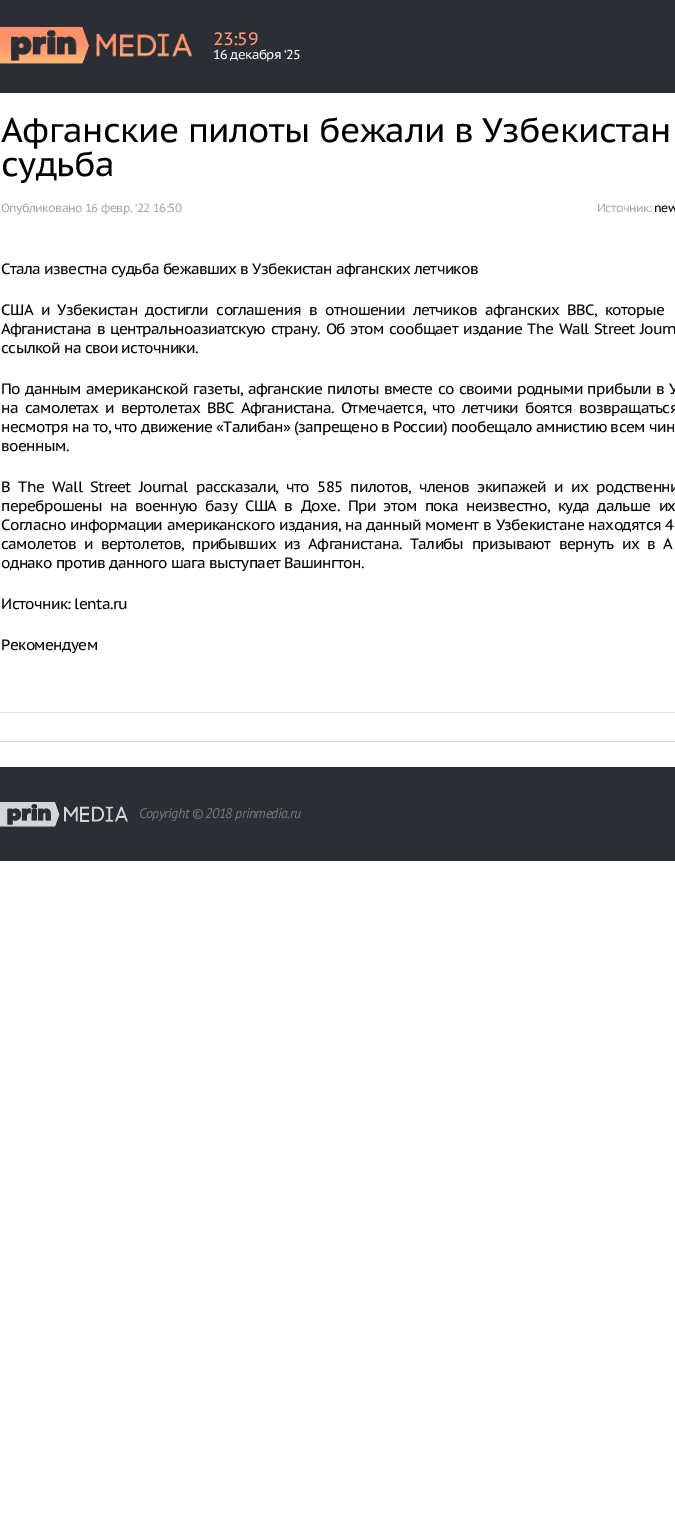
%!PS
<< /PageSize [675 1539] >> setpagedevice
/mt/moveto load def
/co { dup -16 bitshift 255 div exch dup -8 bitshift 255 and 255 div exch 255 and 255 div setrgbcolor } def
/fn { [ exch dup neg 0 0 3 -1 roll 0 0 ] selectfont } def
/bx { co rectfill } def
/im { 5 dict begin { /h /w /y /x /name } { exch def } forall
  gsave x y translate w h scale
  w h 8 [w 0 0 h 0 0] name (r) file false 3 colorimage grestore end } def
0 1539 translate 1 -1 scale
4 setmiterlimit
0 0 675 1539 16#FFFFFF bx
0 0 675 93 16#2B2E34 bx
(media/1.raw) 0 27 193 37 im
0 712 675 1 16#E0E0E0 bx
0 741 675 1 16#E0E0E0 bx
0 767 675 94 16#2B2E34 bx
(media/2.raw) 0 802 128 25 im
/PTSansCaption-Regular 18 fn
16#FF9A77 co
213 45 mt -.6 0 (23:59) ashow
/PTSansCaption-Regular 13 fn
16#FFFFFF co
213 59 mt -.6 0 (16 декабря ‘25) ashow
/PTSansCaption-Regular 34 fn
16#000000 co
1 142 mt -.6 0 (Афганские пилоты бежали в Узбекистан) ashow
1 176 mt -.6 0 (судьба) ashow
/PTSansCaption-Regular 12 fn
16#A8A8A8 co
1 212 mt -.6 0 (Опубликовано 16 февр. ‘22 16:50) ashow
597 212 mt -.6 0 (Источник:) ashow
16#000000 co
654 212 mt -.6 0 (new) ashow
/PTSansCaption-Regular 15 fn
1 274 mt -.6 0 (Стала известна судьба бежавших в Узбекистан афганских летчиков) ashow
1 315 mt 4.25 0 32 -.6 0 (США и Узбекистан достигли соглашения в отношении летчиков афганских ВВС, которые) awidthshow
1 334 mt 1.5 0 32 -.6 0 (Афганистана в центральноазиатскую страну. Об этом сообщает издание The Wall Street Journ) awidthshow
1 353 mt -.6 0 (ссылкой на свои источники.) ashow
1 394 mt 1.25 0 32 -.6 0 (По данным американской газеты, афганские пилоты вместе со своими родными прибыли в У) awidthshow
1 413 mt 2.9 0 32 -.6 0 (на самолетах и вертолетах ВВС Афганистана. Отмечается, что летчики боятся возвращаться) awidthshow
1 432 mt -.6 0 (несмотря на то, что движение «Талибан» \(запрещено в России\) пообещало амнистию всем чин) ashow
1 451 mt -.6 0 (военным.) ashow
1 492 mt 4.25 0 32 -.6 0 (В The Wall Street Journal рассказали, что 585 пилотов, членов экипажей и их родственни) awidthshow
1 511 mt 4.25 0 32 -.6 0 (переброшены на военную базу США в Дохе. При этом пока неизвестно, куда дальше их) awidthshow
1 530 mt .75 0 32 -.6 0 (Согласно информации американского издания, на данный момент в Узбекистане находятся 4) awidthshow
1 549 mt 4.4 0 32 -.6 0 (самолетов и вертолетов, прибывших из Афганистана. Талибы призывают вернуть их в А) awidthshow
1 568 mt -.6 0 (однако против данного шага выступает Вашингтон.) ashow
1 609 mt -.6 0 (Источник: lenta.ru) ashow
1 650 mt -.6 0 (Рекомендуем) ashow
/PTSans-Italic 14 fn
16#787878 co
139 818 mt -.6 0 (Copyright © 2018 prinmedia.ru) ashow
showpage
